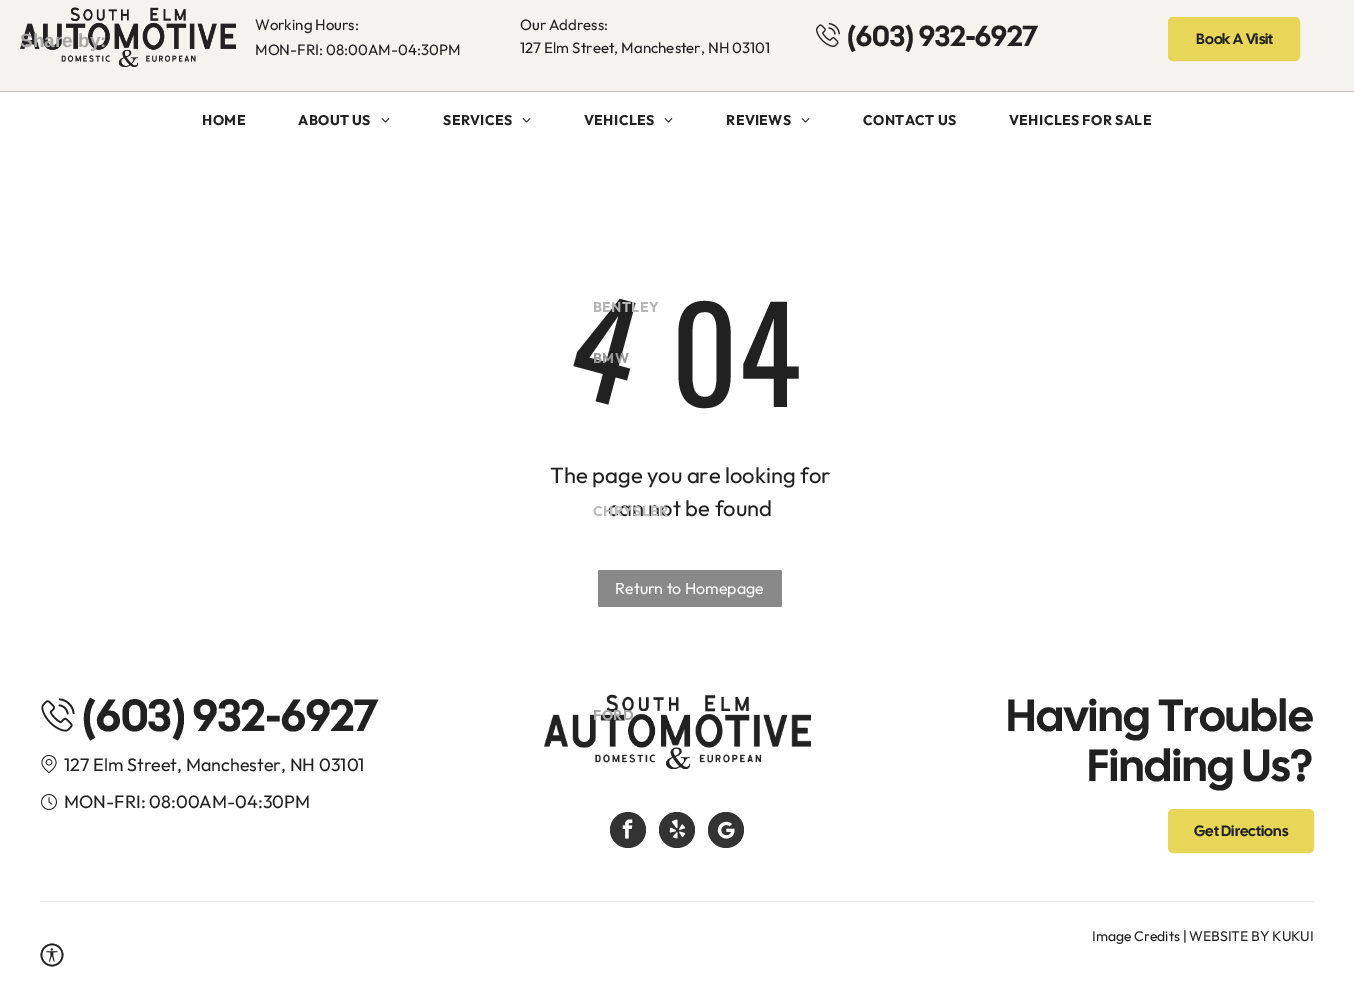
%!PS
<< /PageSize [1354 987] >> setpagedevice
/mt/moveto load def
/fl/fill load def
/st/stroke load def
/gs/gsave load def
/gr/grestore load def
/lw/setlinewidth load def
/co { dup -16 bitshift 255 div exch dup -8 bitshift 255 and 255 div exch 255 and 255 div setrgbcolor } def
/fn { [ exch dup neg 0 0 3 -1 roll 0 0 ] selectfont } def
/tx { co fn moveto show } def
/bx { co rectfill } def
/ci { newpath 0 360 arc closepath } def
/rr { 5 dict begin { /r /h /w /y /x } { exch def } forall
  x r add y moveto x w add y 2 copy h add r arct x w add y h add x 1 index r arct
  x y h add x y r arct x y 2 copy exch w add exch r arct closepath end } def
/im { 5 dict begin { /h /w /y /x /name } { exch def } forall
  gsave x y translate w h scale
  w h 8 [w 0 0 h 0 0] name (r) file false 3 colorimage grestore end } def
0 987 translate 1 -1 scale
4 setmiterlimit
0 0 1354 987 16#FFFFFF bx
0 0 1354 91 16#F4F3EE bx
(media/1.raw) 20 7 216 60 im
(media/2.raw) 816 23 24 24 im
16#E8D659 co
1169 18 130 42 4 rr gs fl gr
2 lw
st
0 91 1354 1 16#BCBCBC bx
(media/3.raw) 381 118 9 5 im
(media/3.raw) 522 118 9 5 im
(media/3.raw) 664 118 9 5 im
(media/3.raw) 801 118 9 5 im
16#898989 co
598 570 184 37 2 rr fl
(media/4.raw) 41 698 34 34 im
(media/5.raw) 41 755 16 18 im
(media/6.raw) 41 794 16 16 im
(media/7.raw) 544 694 267 75 im
16#333333 co
628 830 18 ci fl
(media/8.raw) 622 819 11 20 im
677 830 18 ci fl
(media/9.raw) 669 819 17 20 im
726 830 18 ci fl
(media/10.raw) 717 821 18 18 im
16#E8D659 co
1169 810 144 42 4 rr gs fl gr
st
40 901 1274 1 16#EBEBEB bx
(media/11.raw) 40 943 24 24 im
(Share by:) 20 47 /LiberationSans-Bold 19 16#A7A7A7 tx
(Working Hours:) 255 30 /Outfit-Regular 15 16#212121 tx
(MON-FRI: 08:00AM-04:30PM) 255 55 /Outfit-Regular 15 16#212121 tx
(Our Address:) 520 30 /Outfit-Regular 15 16#212121 tx
(127 Elm Street, Manchester, NH 03101) 520 53 /Outfit-Regular 15 16#212121 tx
(\(603\) 932-6927) 847 46 /CalSans-Regular 29 16#212121 tx
(Book A Visit) 1196 44 /CalSans-Regular 15 16#212121 tx
/Outfit-Bold 14 fn
202 125 mt .4 0 (HOME) ashow
298 125 mt .4 0 (ABOUT US) ashow
443 125 mt .4 0 (SERVICES) ashow
584 125 mt .4 0 (VEHICLES) ashow
16#A7A7A7 co
593 720 mt .4 0 (FORD) ashow
16#212121 co
726 125 mt .4 0 (REVIEWS) ashow
863 125 mt .4 0 (CONTACT US) ashow
1009 125 mt .4 0 (VEHICLES FOR SALE) ashow
/Oswald-Regular 130 fn
gs 561 392 translate 15 rotate 0 0 mt (4) show gr
/Outfit-Bold 14 fn
16#979797 co
593 363 mt .4 0 (BMW) ashow
16#B6B6B6 co
593 312 mt .4 0 (BENTLEY) ashow
(04) 671 407 /Oswald-Regular 130 16#212121 tx
(The page you are looking for) 550 483 /Outfit-Regular 22 16#212121 tx
(can not be found) 608 516 /Outfit-Regular 22 16#212121 tx
/Outfit-Bold 14 fn
16#BDBDBD co
593 516 mt .4 0 (CHRYSLER) ashow
(Return to Homepage) 615 594 /Outfit-Regular 16 16#FFFFFF tx
(\(603\) 932-6927) 82 731 /CalSans-Regular 45 16#212121 tx
(127 Elm Street, Manchester, NH 03101) 64 771 /Outfit-Regular 18 16#212121 tx
(MON-FRI: 08:00AM-04:30PM) 64 808 /Outfit-Regular 18 16#212121 tx
(Having Trouble) 1006 731 /CalSans-Regular 45 16#212121 tx
(Finding Us?) 1087 781 /CalSans-Regular 45 16#212121 tx
(Get Directions) 1194 836 /CalSans-Regular 15 16#212121 tx
(Image Credits | WEBSITE BY KUKUI) 1092 941 /Outfit-Regular 14 16#212121 tx
showpage
